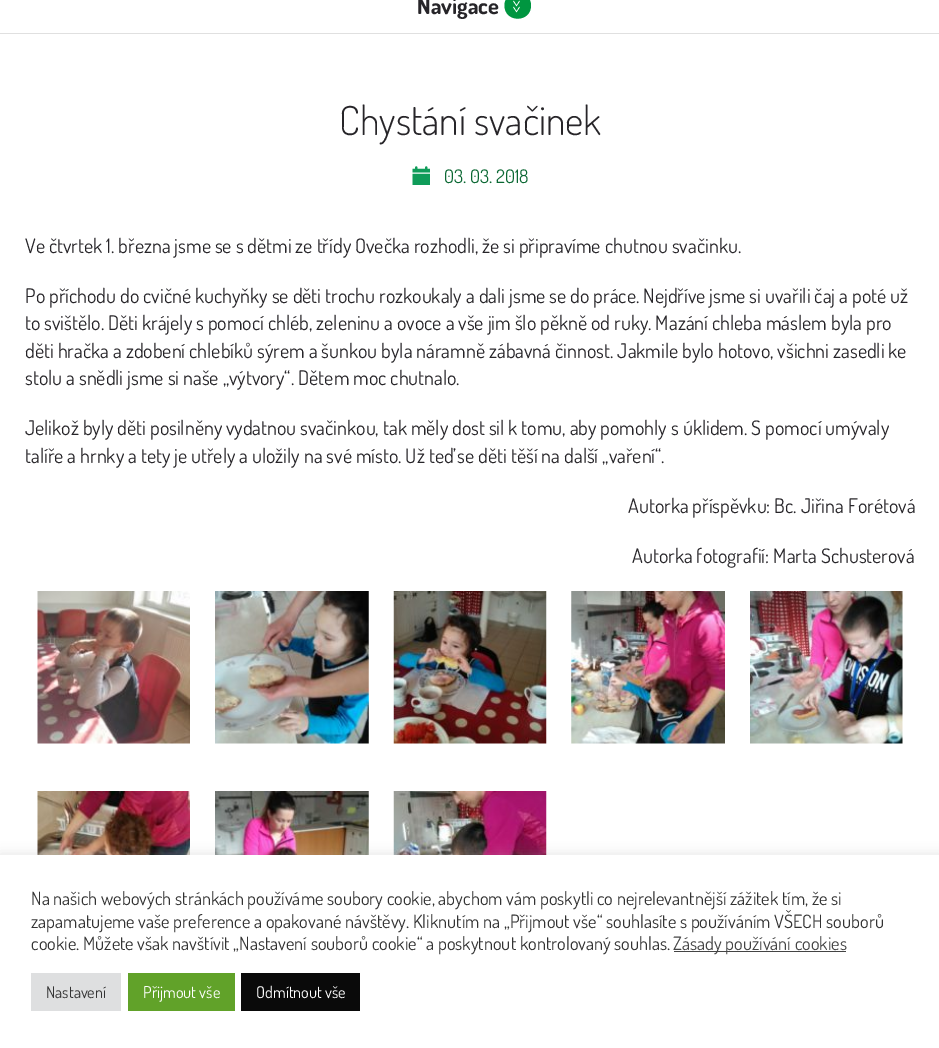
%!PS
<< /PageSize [939 1048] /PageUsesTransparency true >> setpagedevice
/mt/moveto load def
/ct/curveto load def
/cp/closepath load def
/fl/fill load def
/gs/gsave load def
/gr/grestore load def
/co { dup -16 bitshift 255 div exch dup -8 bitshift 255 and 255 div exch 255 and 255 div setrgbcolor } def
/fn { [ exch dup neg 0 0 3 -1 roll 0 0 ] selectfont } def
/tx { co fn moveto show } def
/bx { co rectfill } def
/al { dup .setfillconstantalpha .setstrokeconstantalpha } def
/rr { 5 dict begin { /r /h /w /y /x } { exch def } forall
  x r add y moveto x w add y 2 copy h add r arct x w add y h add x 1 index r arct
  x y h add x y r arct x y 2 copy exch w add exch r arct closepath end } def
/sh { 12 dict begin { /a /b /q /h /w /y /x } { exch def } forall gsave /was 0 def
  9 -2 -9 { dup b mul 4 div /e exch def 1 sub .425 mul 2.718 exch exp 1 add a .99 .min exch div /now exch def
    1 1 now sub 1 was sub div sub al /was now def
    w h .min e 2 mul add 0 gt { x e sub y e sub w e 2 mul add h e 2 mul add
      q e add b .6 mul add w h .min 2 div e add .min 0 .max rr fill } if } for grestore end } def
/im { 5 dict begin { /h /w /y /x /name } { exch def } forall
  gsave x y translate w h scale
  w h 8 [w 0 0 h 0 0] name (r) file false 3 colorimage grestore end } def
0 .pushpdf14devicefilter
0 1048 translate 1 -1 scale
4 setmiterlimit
0 0 939 1048 16#FFFFFF bx
0 33 939 1 16#E0E0E0 bx
16#009640 co
531 5.5 mt 531 23 504.5 23 504.5 5.5 ct 504.5 -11.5 531 -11.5 531 5.5 ct cp fl
(media/1.raw) 412 166 18 19 im
(media/2.raw) 37 591 153 153 im
(media/3.raw) 215 591 154 153 im
(media/4.raw) 393 591 154 153 im
(media/5.raw) 571 591 154 153 im
(media/6.raw) 750 591 153 153 im
(media/7.raw) 37 791 153 64 im
(media/8.raw) 215 791 154 64 im
(media/9.raw) 393 791 154 64 im
16#ACABAB co
0 854 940 194 0 6 .3 sh
0 855 939 193 16#FFFFFF bx
674 951 172 1 16#444444 bx
31 973 90 38 16#DEDFE0 bx
128 973 107 38 16#61A229 bx
241 973 119 38 16#0A0A0A bx
(Navigace) 417 14 /Dosis-Bold 22.5 16#272529 tx
/Dosis-Regular 16.25 fn
16#FFFFFF co
gs 512 0 translate 90 rotate 0 0 mt -1 0 (>>) ashow gr
(Chystání svačinek) 339 135 /Dosis-Light 40 16#272529 tx
(03. 03. 2018) 444 183 /Dosis-Regular 18.75 16#0B6833 tx
(Ve čtvrtek 1. března jsme se s dětmi ze třídy Ovečka rozhodli, že si připravíme chutnou svačinku.) 25 253 /Dosis-Regular 20 16#272529 tx
(Po příchodu do cvičné kuchyňky se děti trochu rozkoukaly a dali jsme se do práce. Nejdříve jsme si uvařili čaj a poté už) 25 303 /Dosis-Regular 20 16#272529 tx
(to svištělo. Děti krájely s pomocí chléb, zeleninu a ovoce a vše jim šlo pěkně od ruky. Mazání chleba máslem byla pro) 25 330 /Dosis-Regular 20 16#272529 tx
(děti hračka a zdobení chlebíků sýrem a šunkou byla náramně zábavná činnost. Jakmile bylo hotovo, všichni zasedli ke) 25 358 /Dosis-Regular 20 16#272529 tx
(stolu a snědli jsme si naše „výtvory“. Dětem moc chutnalo.) 25 385 /Dosis-Regular 20 16#272529 tx
(Jelikož byly děti posilněny vydatnou svačinkou, tak měly dost sil k tomu, aby pomohly s úklidem. S pomocí umývaly) 25 435 /Dosis-Regular 20 16#272529 tx
(talíře a hrnky a tety je utřely a uložily na své místo. Už teď se děti těší na další „vaření“.) 25 463 /Dosis-Regular 20 16#272529 tx
(Autorka příspěvku: Bc. Jiřina Forétová) 628 513 /Dosis-Regular 20 16#272529 tx
(Autorka fotografií: Marta Schusterová) 632 563 /Dosis-Regular 20 16#272529 tx
(Na našich webových stránkách používáme soubory cookie, abychom vám poskytli co nejrelevantnější zážitek tím, že si) 31 905 /Dosis-Regular 18.35 16#333333 tx
(zapamatujeme vaše preference a opakované návštěvy. Kliknutím na „Přijmout vše“ souhlasíte s používáním VŠECH souborů) 31 928 /Dosis-Regular 18.35 16#333333 tx
(cookie. Můžete však navštívit „Nastavení souborů cookie“ a poskytnout kontrolovaný souhlas.) 31 950 /Dosis-Regular 18.35 16#333333 tx
(Zásady používání cookies) 673 950 /Dosis-Regular 18.35 16#444444 tx
(Nastavení) 46 998 /Dosis-Regular 16.25 16#333333 tx
(Přijmout vše) 143 998 /Dosis-Regular 16.25 16#FFFFFF tx
(Odmítnout vše) 256 998 /Dosis-Regular 16.25 16#FFFFFF tx
.poppdf14devicefilter showpage
